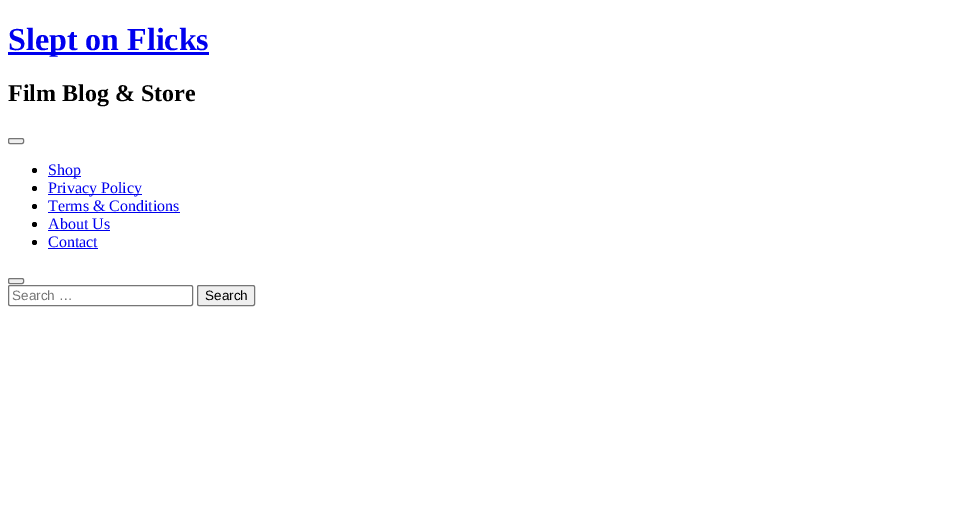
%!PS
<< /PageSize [967 531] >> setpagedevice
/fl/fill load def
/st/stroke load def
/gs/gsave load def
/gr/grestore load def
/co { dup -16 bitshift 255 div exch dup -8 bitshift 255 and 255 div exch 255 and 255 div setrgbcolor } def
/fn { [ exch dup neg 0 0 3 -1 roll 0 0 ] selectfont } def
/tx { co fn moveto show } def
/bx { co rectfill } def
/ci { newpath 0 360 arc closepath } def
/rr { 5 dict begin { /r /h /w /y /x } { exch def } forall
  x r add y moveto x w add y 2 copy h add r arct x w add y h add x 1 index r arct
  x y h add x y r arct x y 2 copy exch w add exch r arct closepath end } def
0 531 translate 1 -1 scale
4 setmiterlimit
0 0 967 531 16#FFFFFF bx
8 52 201 3 16#0000EE bx
16#EFEFEF co
8.5 138.5 15 5 1.5 rr gs fl gr
16#767676 co
st
16#000000 co
34.5 170.5 2.5 ci fl
48 176 33 1 16#0000EE bx
16#000000 co
34.5 188.5 2.5 ci fl
48 194 94 1 16#0000EE bx
16#000000 co
34.5 206.5 2.5 ci fl
48 212 132 1 16#0000EE bx
16#000000 co
34.5 224.5 2.5 ci fl
48 230 62 1 16#0000EE bx
16#000000 co
34.5 242.5 2.5 ci fl
48 248 50 1 16#0000EE bx
16#EFEFEF co
8.5 278.5 15 5 1.5 rr gs fl gr
16#767676 co
st
8.5 285.5 184 20 1.5 rr st
16#EFEFEF co
197.5 285.5 57 20 1.5 rr gs fl gr
16#767676 co
st
(Slept on Flicks) 8 50 /LiberationSerif-Bold 32 16#0000EE tx
(Film Blog & Store) 8 101 /LiberationSerif-Bold 24 16#000000 tx
(Shop) 48 175 /LiberationSerif-Regular 16 16#0000EE tx
(Privacy Policy) 48 193 /LiberationSerif-Regular 16 16#0000EE tx
(Terms & Conditions) 48 211 /LiberationSerif-Regular 16 16#0000EE tx
(About Us) 48 229 /LiberationSerif-Regular 16 16#0000EE tx
(Contact) 48 247 /LiberationSerif-Regular 16 16#0000EE tx
(Search …) 12 300 /LiberationSans-Regular 13.5 16#757575 tx
(Search) 205 300 /LiberationSans-Regular 13.5 16#000000 tx
showpage
